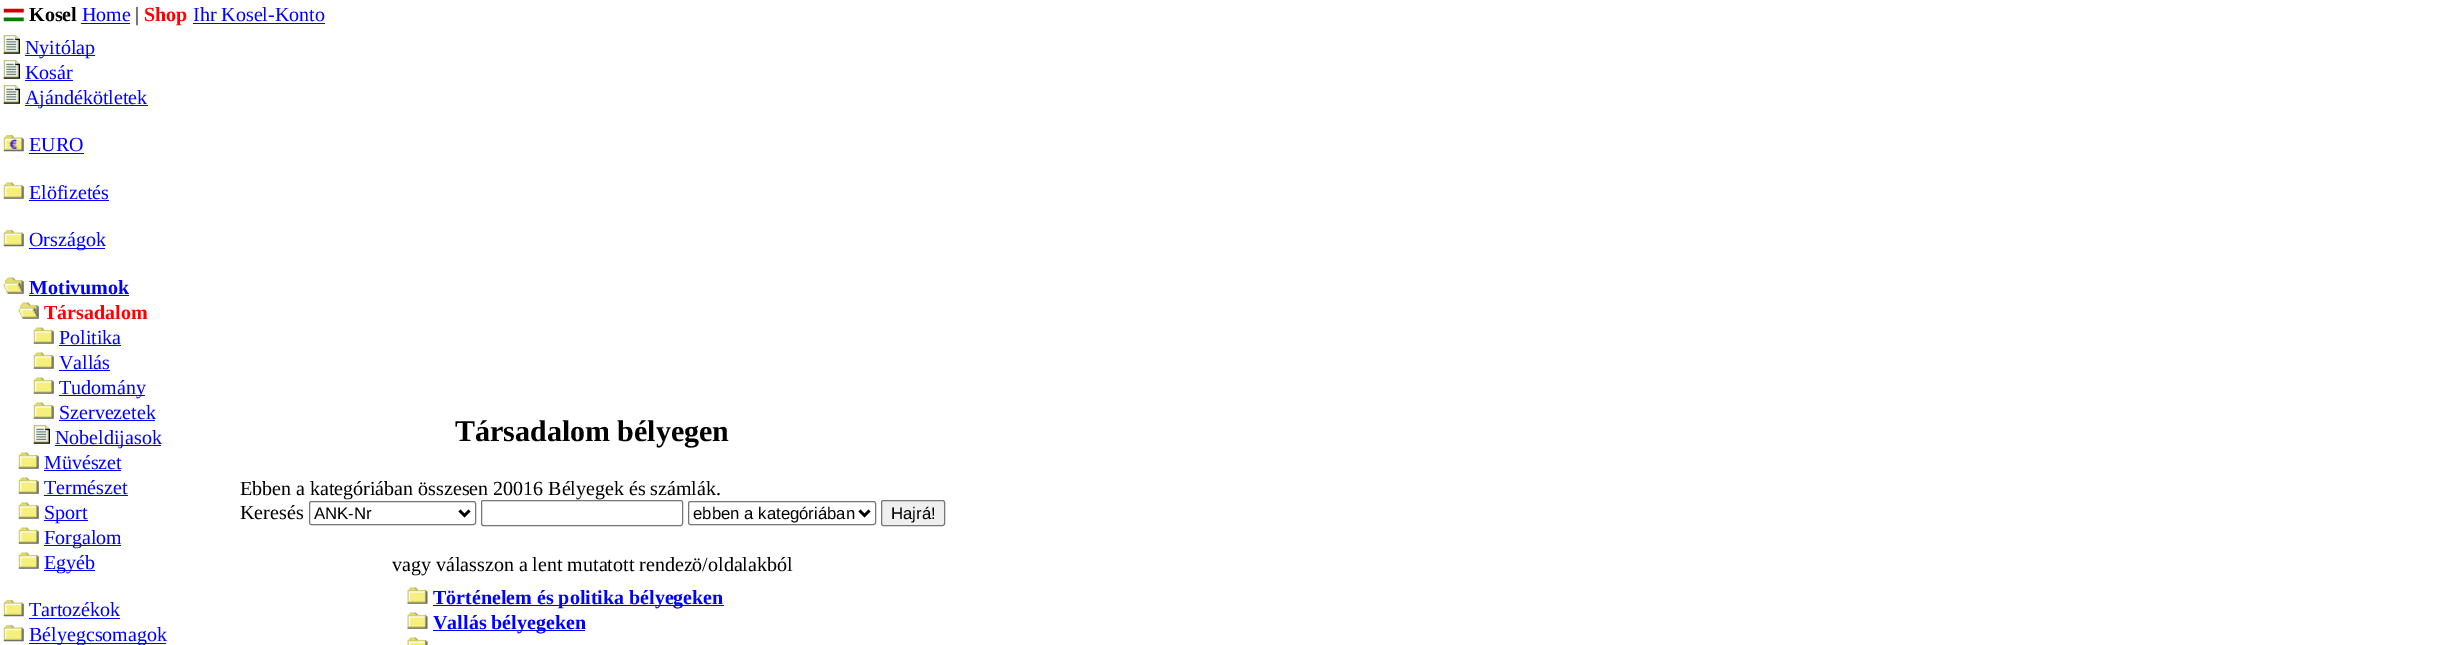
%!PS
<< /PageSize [2462 645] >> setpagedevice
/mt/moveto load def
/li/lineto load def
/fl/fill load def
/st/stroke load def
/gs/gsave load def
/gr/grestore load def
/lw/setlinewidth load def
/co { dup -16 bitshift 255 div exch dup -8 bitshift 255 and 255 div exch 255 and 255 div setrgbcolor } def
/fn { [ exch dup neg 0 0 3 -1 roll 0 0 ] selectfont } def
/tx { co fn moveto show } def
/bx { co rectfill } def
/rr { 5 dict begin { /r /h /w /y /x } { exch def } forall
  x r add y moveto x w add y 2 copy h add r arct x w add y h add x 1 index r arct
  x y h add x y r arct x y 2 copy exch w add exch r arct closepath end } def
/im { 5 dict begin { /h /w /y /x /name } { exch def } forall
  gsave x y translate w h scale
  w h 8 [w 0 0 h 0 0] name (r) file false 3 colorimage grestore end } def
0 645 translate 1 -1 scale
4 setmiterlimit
0 0 2462 645 16#FFFFFF bx
(media/1.raw) 3 8 21 14 im
81 23 49 1 16#0000FF bx
193 23 132 1 16#0000FF bx
(media/2.raw) 3 34 17 20 im
25 55 70 1 16#0000FF bx
(media/2.raw) 3 59 17 20 im
25 80 48 1 16#0000FF bx
(media/2.raw) 3 84 17 20 im
25 105 123 1 16#0000FF bx
(media/3.raw) 3 134 21 18 im
29 153 55 1 16#0000FF bx
(media/4.raw) 3 182 21 17 im
29 200 80 1 16#0000FF bx
(media/5.raw) 3 229 21 18 im
29 248 76 1 16#0000FF bx
(media/6.raw) 3 277 21 17 im
29 295 100 1 16#0000FF bx
(media/6.raw) 18 302 21 17 im
(media/4.raw) 33 327 21 17 im
59 345 62 1 16#0000FF bx
(media/4.raw) 33 352 21 17 im
59 370 51 1 16#0000FF bx
(media/4.raw) 33 377 21 17 im
59 395 86 1 16#0000FF bx
(media/4.raw) 33 402 21 17 im
59 420 96 1 16#0000FF bx
(media/2.raw) 33 424 17 20 im
55 445 106 1 16#0000FF bx
(media/4.raw) 18 452 21 17 im
44 470 77 1 16#0000FF bx
(media/4.raw) 18 477 21 17 im
44 495 84 1 16#0000FF bx
(media/4.raw) 18 502 21 17 im
44 520 44 1 16#0000FF bx
(media/4.raw) 18 527 21 17 im
44 545 77 1 16#0000FF bx
(media/4.raw) 18 552 21 17 im
44 570 51 1 16#0000FF bx
(media/5.raw) 3 599 21 18 im
29 618 91 1 16#0000FF bx
(media/5.raw) 3 624 21 18 im
29 643 137 1 16#0000FF bx
16#767676 co
309.5 501.5 166 23 2 rr st
16#000000 co
2.5 lw
459.5 510.5 mt 464.5 515.5 li 469.5 510.5 li st
16#767676 co
1 lw
481.5 500.5 201 25 2 rr st
688.5 501.5 187 23 2 rr st
16#000000 co
2.5 lw
859.5 510.5 mt 864.5 515.5 li 869.5 510.5 li st
16#EFEFEF co
881.5 500.5 63 25 2 rr gs fl gr
16#767676 co
1 lw
st
(media/7.raw) 407 587 21 17 im
433 605 291 1 16#0000FF bx
(media/8.raw) 407 612 21 17 im
433 630 152 1 16#0000FF bx
(media/9.raw) 407 637 21 8 im
(Kosel) 29 21 /LiberationSerif-Bold 20 16#000000 tx
(Home) 82 21 /LiberationSerif-Regular 20 16#0000FF tx
(|) 135 21 /LiberationSerif-Regular 20 16#000000 tx
(Shop) 144 21 /LiberationSerif-Bold 20 16#FF0000 tx
(Ihr Kosel-Konto) 193 21 /LiberationSerif-Regular 20 16#0000FF tx
(Nyitólap) 25 54 /LiberationSerif-Regular 20 16#0000FF tx
(Kosár) 25 79 /LiberationSerif-Regular 20 16#0000FF tx
(Ajándékötletek) 25 104 /LiberationSerif-Regular 20 16#0000FF tx
(EURO) 29 151 /LiberationSerif-Regular 20 16#0000FF tx
(Elöfizetés) 29 199 /LiberationSerif-Regular 20 16#0000FF tx
(Országok) 29 246 /LiberationSerif-Regular 20 16#0000FF tx
(Motivumok) 29 294 /LiberationSerif-Bold 20 16#0000FF tx
(Társadalom) 44 319 /LiberationSerif-Bold 20 16#FF0000 tx
(Politika) 59 344 /LiberationSerif-Regular 20 16#0000FF tx
(Vallás) 59 369 /LiberationSerif-Regular 20 16#0000FF tx
(Tudomány) 59 394 /LiberationSerif-Regular 20 16#0000FF tx
(Szervezetek) 59 419 /LiberationSerif-Regular 20 16#0000FF tx
(Nobeldijasok) 55 444 /LiberationSerif-Regular 20 16#0000FF tx
(Müvészet) 44 469 /LiberationSerif-Regular 20 16#0000FF tx
(Természet) 44 494 /LiberationSerif-Regular 20 16#0000FF tx
(Sport) 44 519 /LiberationSerif-Regular 20 16#0000FF tx
(Forgalom) 44 544 /LiberationSerif-Regular 20 16#0000FF tx
(Egyéb) 44 569 /LiberationSerif-Regular 20 16#0000FF tx
(Tartozékok) 29 616 /LiberationSerif-Regular 20 16#0000FF tx
(Bélyegcsomagok) 29 641 /LiberationSerif-Regular 20 16#0000FF tx
(Társadalom bélyegen) 455 441 /LiberationSerif-Bold 30 16#000000 tx
(Ebben a kategóriában összesen 20016 Bélyegek és számlák.) 240 495 /LiberationSerif-Regular 20 16#000000 tx
(Keresés) 240 519 /LiberationSerif-Regular 20 16#000000 tx
(ANK-Nr) 314 519 /LiberationSans-Regular 16.75 16#000000 tx
(ebben a kategóriában) 693 519 /LiberationSans-Regular 16.75 16#000000 tx
(Hajrá!) 891 519 /LiberationSans-Regular 16.75 16#000000 tx
(vagy válasszon a lent mutatott rendezö/oldalakból) 392 571 /LiberationSerif-Regular 20 16#000000 tx
(Történelem és politika bélyegeken) 433 604 /LiberationSerif-Bold 20 16#0000FF tx
(Vallás bélyegeken) 433 629 /LiberationSerif-Bold 20 16#0000FF tx
showpage
